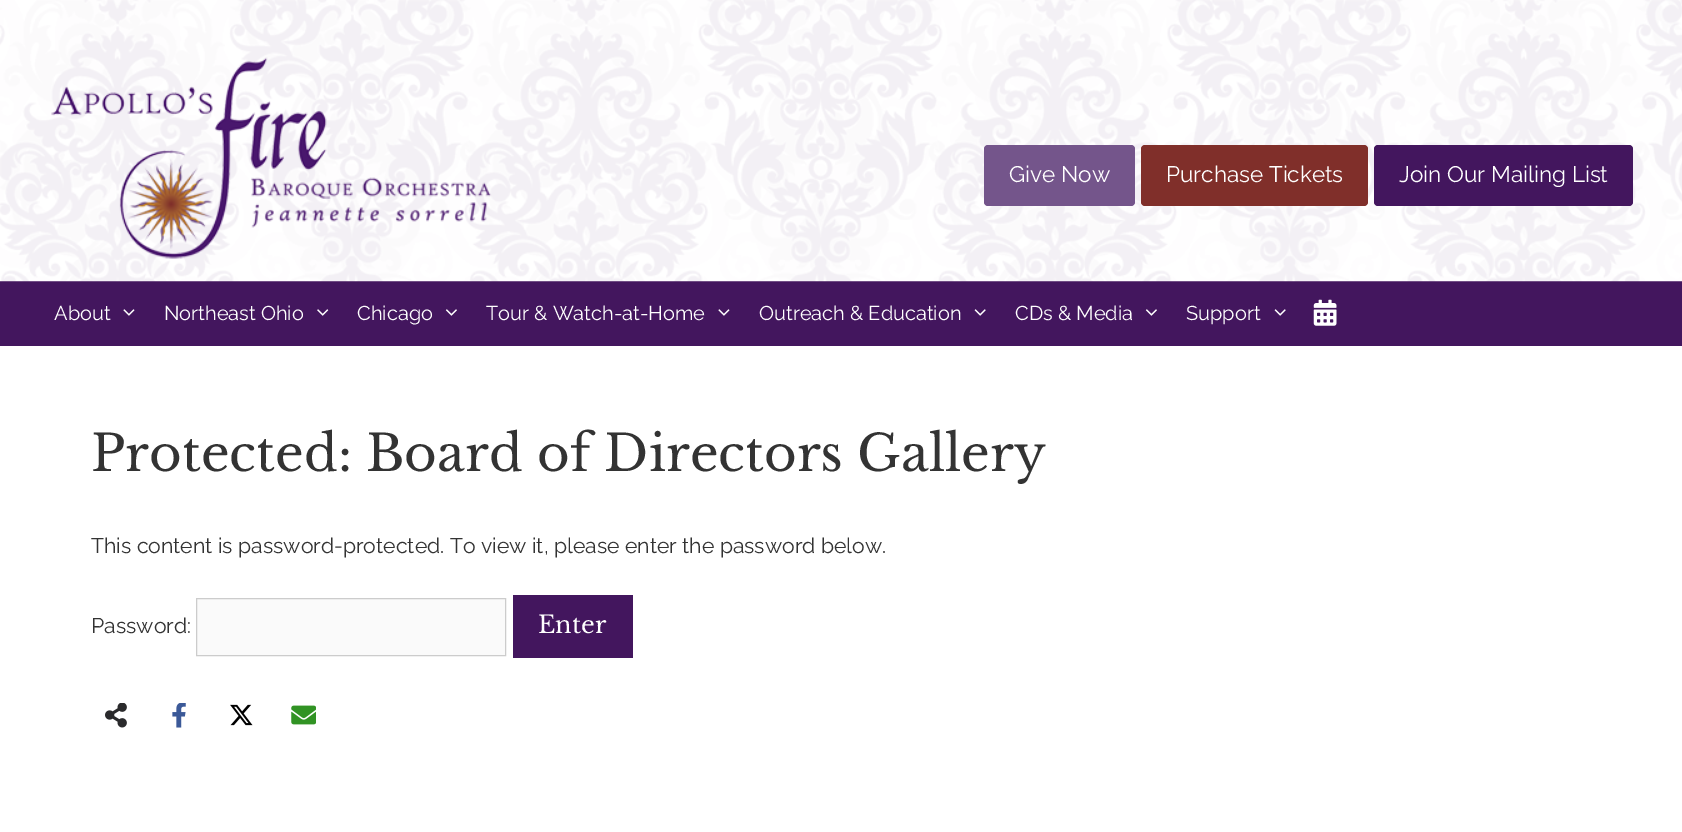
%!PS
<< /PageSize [1682 832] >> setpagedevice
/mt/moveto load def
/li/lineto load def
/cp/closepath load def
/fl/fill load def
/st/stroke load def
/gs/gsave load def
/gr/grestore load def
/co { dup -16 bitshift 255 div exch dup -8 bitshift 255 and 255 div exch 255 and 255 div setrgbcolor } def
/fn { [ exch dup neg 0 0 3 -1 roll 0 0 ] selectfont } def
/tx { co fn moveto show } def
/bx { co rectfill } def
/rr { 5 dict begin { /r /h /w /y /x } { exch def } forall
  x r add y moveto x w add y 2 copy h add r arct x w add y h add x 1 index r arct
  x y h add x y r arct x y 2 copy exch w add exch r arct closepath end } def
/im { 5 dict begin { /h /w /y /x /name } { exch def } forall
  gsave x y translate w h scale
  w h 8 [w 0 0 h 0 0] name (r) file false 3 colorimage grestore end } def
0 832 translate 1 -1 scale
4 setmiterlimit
0 0 1682 832 16#FFFFFF bx
0 281 1682 65 16#43165E bx
(media/1.raw) 0 0 1682 282 im
(media/2.raw) 51 57 441 202 im
16#74558B co
984 145 151 61 4 rr fl
16#802F2A co
1141 145 227 61 4 rr fl
16#43165E co
1374 145 259 61 4 rr fl
(media/3.raw) 123 309 12 7 im
(media/4.raw) 317 309 12 7 im
(media/5.raw) 445 309 12 7 im
(media/3.raw) 718 309 12 7 im
(media/6.raw) 974 309 12 7 im
(media/5.raw) 1145 309 12 7 im
(media/6.raw) 1274 309 12 7 im
(media/7.raw) 1313 299 24 27 im
16#FAFAFA co
196.5 598.5 mt 505.5 598.5 li 505.5 655.5 li 196.5 655.5 li cp gs fl gr
16#CCCCCC co
st
513 595 120 63 16#43165E bx
(media/8.raw) 105 703 22 25 im
(media/9.raw) 172 703 14 25 im
(media/10.raw) 230 704 23 22 im
(media/11.raw) 291 705 25 20 im
(Give Now) 1009 182 /Raleway-Regular 22.5 16#FFFFFF tx
(Purchase Tickets) 1166 182 /Raleway-Regular 22.5 16#FFFFFF tx
(Join Our Mailing List) 1399 182 /Raleway-Regular 22.5 16#FFFFFF tx
(About) 54 320 /Raleway-Regular 20 16#FFFFFF tx
(Northeast Ohio) 164 320 /Raleway-Regular 20 16#FFFFFF tx
(Chicago) 357 320 /Raleway-Regular 20 16#FFFFFF tx
(Tour & Watch-at-Home) 486 320 /Raleway-Regular 20 16#FFFFFF tx
(Outreach & Education) 759 320 /Raleway-Regular 20 16#FFFFFF tx
(CDs & Media) 1015 320 /Raleway-Regular 20 16#FFFFFF tx
(Support) 1186 320 /Raleway-Regular 20 16#FFFFFF tx
(Protected: Board of Directors Gallery) 91 471 /LibreBaskerville-Regular 50 16#333333 tx
(This content is password-protected. To view it, please enter the password below.) 91 553 /Raleway-Regular 21.25 16#333333 tx
(Password:) 91 633 /Raleway-Regular 21.25 16#333333 tx
(Enter) 538 633 /LibreBaskerville-Regular 24 16#FFFFFF tx
showpage
